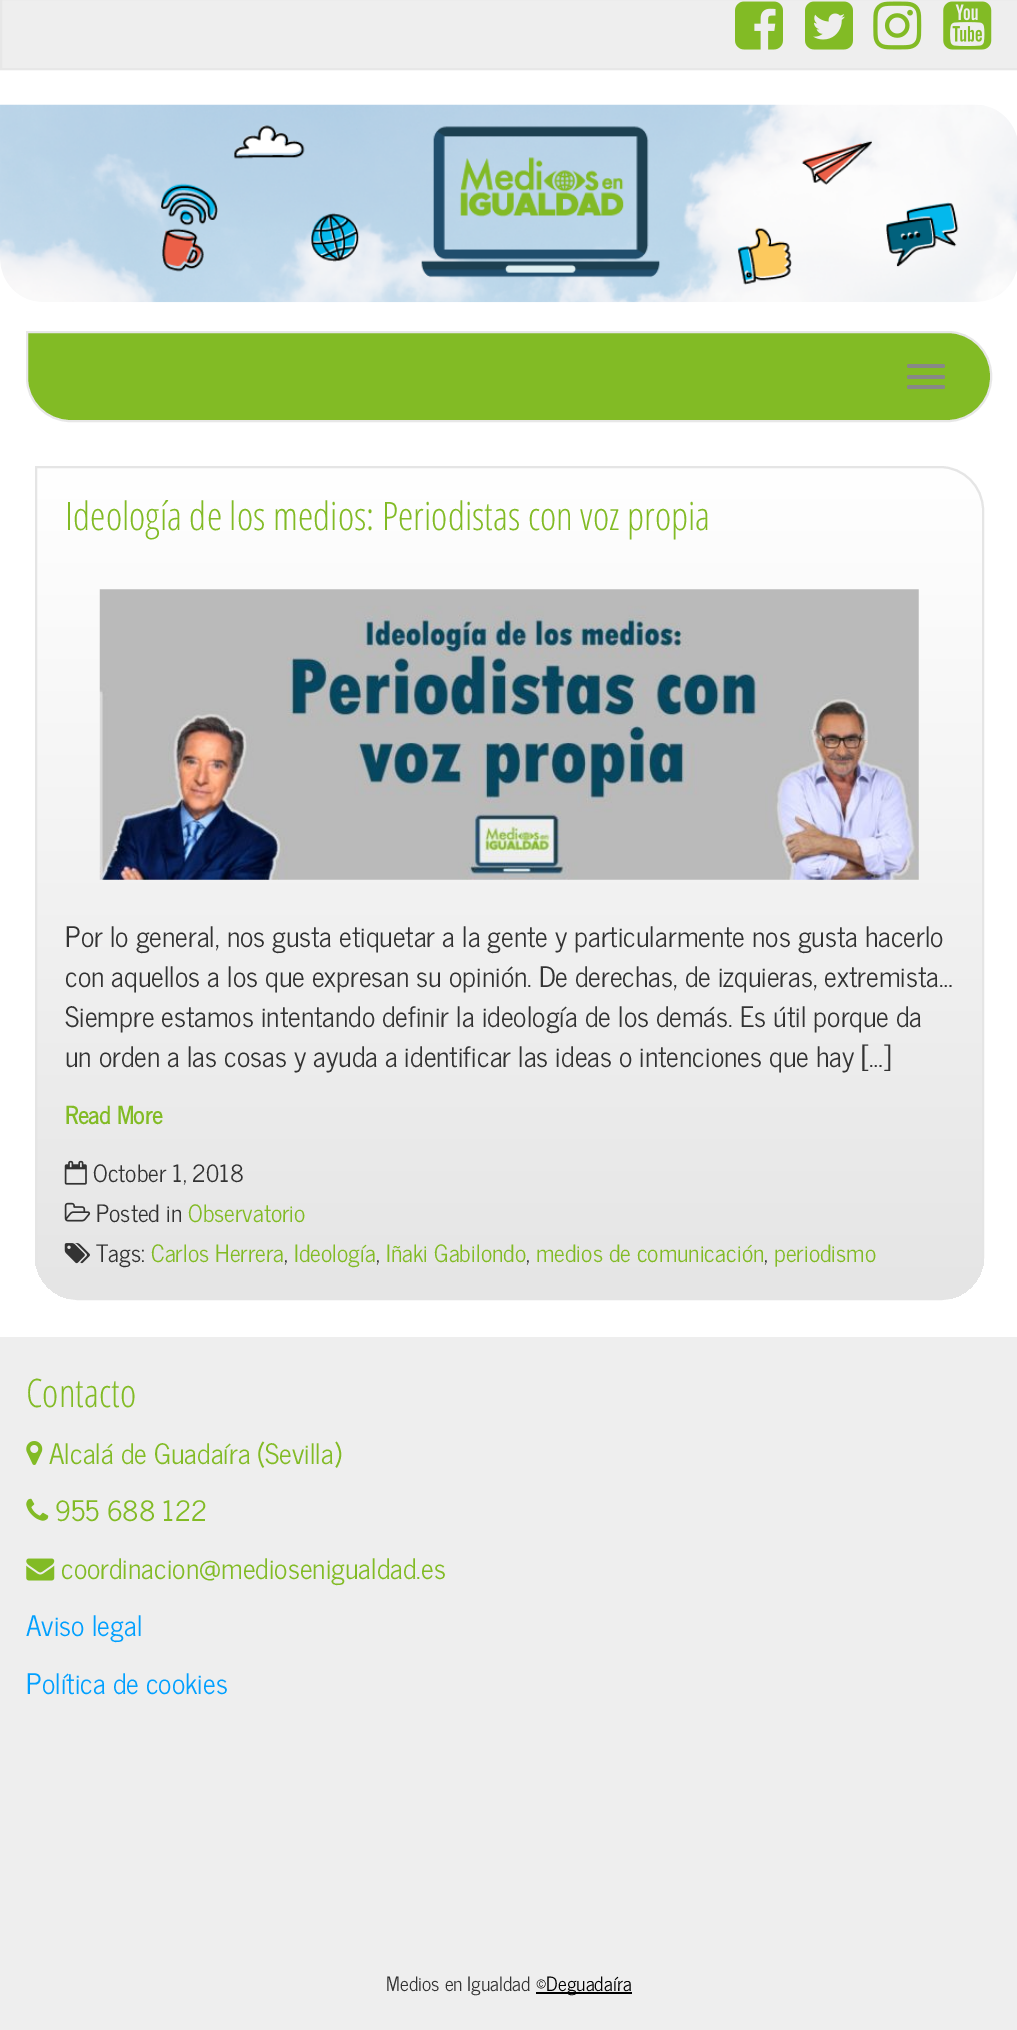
%!PS
<< /PageSize [1017 2030] >> setpagedevice
/mt/moveto load def
/li/lineto load def
/ct/curveto load def
/cp/closepath load def
/fl/fill load def
/st/stroke load def
/gs/gsave load def
/gr/grestore load def
/lw/setlinewidth load def
/co { dup -16 bitshift 255 div exch dup -8 bitshift 255 and 255 div exch 255 and 255 div setrgbcolor } def
/fn { [ exch dup neg 0 0 3 -1 roll 0 0 ] selectfont } def
/tx { co fn moveto show } def
/bx { co rectfill } def
/rr { 5 dict begin { /r /h /w /y /x } { exch def } forall
  x r add y moveto x w add y 2 copy h add r arct x w add y h add x 1 index r arct
  x y h add x y r arct x y 2 copy exch w add exch r arct closepath end } def
/im { 5 dict begin { /h /w /y /x /name } { exch def } forall
  gsave x y translate w h scale
  w h 8 [w 0 0 h 0 0] name (r) file false 3 colorimage grestore end } def
0 2030 translate 1 -1 scale
4 setmiterlimit
0 0 1017 2030 16#FFFFFF bx
16#EEEEEE co
1 -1 mt 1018 -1 li 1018 69 li 1 69 li cp gs fl gr
16#E7E7E7 co
2 lw
st
(media/1.raw) 735 1 48 49 im
(media/2.raw) 805 1 48 49 im
(media/3.raw) 873 1 49 49 im
(media/4.raw) 943 1 49 49 im
(media/5.raw) 0 104 1017 199 im
16#82BB25 co
27 332 mt 948 332 li 971.5 332 991 351.5 991 375 ct 991 378 li 991 401.5 971.5 421 948 421 ct 70 421 li 46.5 421 27 401.5 27 378 ct cp gs fl gr
16#E7E7E7 co
st
16#888888 co
907 364 38 4 2 rr fl
907 375 38 4 2 rr fl
907 385 38 4 2 rr fl
gs
35 466 mt 940 466 li 964.5 466 984 485.5 984 510 ct 984 1256 li 984 1280.5 964.5 1300 940 1300 ct 79 1300 li 54.5 1300 35 1280.5 35 1256 ct cp clip newpath
gs 35 467 mt 984 467 li 984 1299 li 35 1299 li cp clip newpath
<< /ShadingType 2 /ColorSpace /DeviceRGB /Coords [509 467 509 1299] /Extend [true true] /Function << /FunctionType 2 /Domain [0 1] /C0 [1 1 1] /C1 [.898 .898 .898] /N 1 >> >> shfill gr
gr
16#E5E5E5 co
36 467 mt 940 467 li 963.5 467 983 486.5 983 510 ct 983 1256 li 983 1279.5 963.5 1299 940 1299 ct 79 1299 li 55.5 1299 36 1279.5 36 1256 ct cp st
(media/6.raw) 99 589 820 291 im
(media/7.raw) 64 1160 23 25 im
(media/8.raw) 64 1202 27 20 im
(media/9.raw) 64 1243 26 21 im
0 1337 1017 693 16#EEEEEE bx
(media/10.raw) 26 1441 17 24 im
(media/11.raw) 26 1498 23 23 im
(media/12.raw) 26 1558 29 23 im
536 1992 96 2 16#000000 bx
(Ideología de los medios: Periodistas con voz propia) 65 530 /OpenSansCondensed-Light 39.25 16#82BB25 tx
(Por lo general, nos gusta etiquetar a la gente y particularmente nos gusta hacerlo) 65 947 /NewsCycle-Regular 28 16#333333 tx
(con aquellos a los que expresan su opinión. De derechas, de izquieras, extremista…) 65 987 /NewsCycle-Regular 28 16#333333 tx
(Siempre estamos intentando definir la ideología de los demás. Es útil porque da) 65 1027 /NewsCycle-Regular 28 16#333333 tx
(un orden a las cosas y ayuda a identificar las ideas o intenciones que hay […]) 65 1067 /NewsCycle-Regular 28 16#333333 tx
(Read More) 65 1124 /NewsCycle-Bold 23.75 16#82BB25 tx
(October 1, 2018) 93 1182 /NewsCycle-Regular 23.75 16#333333 tx
(Posted in) 96 1222 /NewsCycle-Regular 23.75 16#333333 tx
(Observatorio) 188 1222 /NewsCycle-Regular 23.75 16#82BB25 tx
(Tags:) 96 1262 /NewsCycle-Regular 23.75 16#333333 tx
(Carlos Herrera) 151 1262 /NewsCycle-Regular 23.75 16#82BB25 tx
(,) 284 1262 /NewsCycle-Regular 23.75 16#333333 tx
(Ideología) 294 1262 /NewsCycle-Regular 23.75 16#82BB25 tx
(,) 376 1262 /NewsCycle-Regular 23.75 16#333333 tx
(Iñaki Gabilondo) 386 1262 /NewsCycle-Regular 23.75 16#82BB25 tx
(,) 526 1262 /NewsCycle-Regular 23.75 16#333333 tx
(medios de comunicación) 536 1262 /NewsCycle-Regular 23.75 16#82BB25 tx
(,) 764 1262 /NewsCycle-Regular 23.75 16#333333 tx
(periodismo) 774 1262 /NewsCycle-Regular 23.75 16#82BB25 tx
(Contacto) 26 1407 /OpenSansCondensed-Light 39.25 16#82BB25 tx
(Alcalá de Guadaíra \(Sevilla\)) 49 1464 /NewsCycle-Regular 28 16#82BB25 tx
(955 688 122) 55 1521 /NewsCycle-Regular 28 16#82BB25 tx
(coordinacion@mediosenigualdad.es) 61 1579 /NewsCycle-Regular 28 16#82BB25 tx
(Aviso legal) 26 1636 /NewsCycle-Regular 28 16#01A0FF tx
(Política de cookies) 26 1694 /NewsCycle-Regular 28 16#01A0FF tx
(Medios en Igualdad) 386 1991 /NewsCycle-Regular 19.5 16#333333 tx
(©Deguadaíra) 536 1991 /NewsCycle-Regular 19.5 16#000000 tx
showpage
